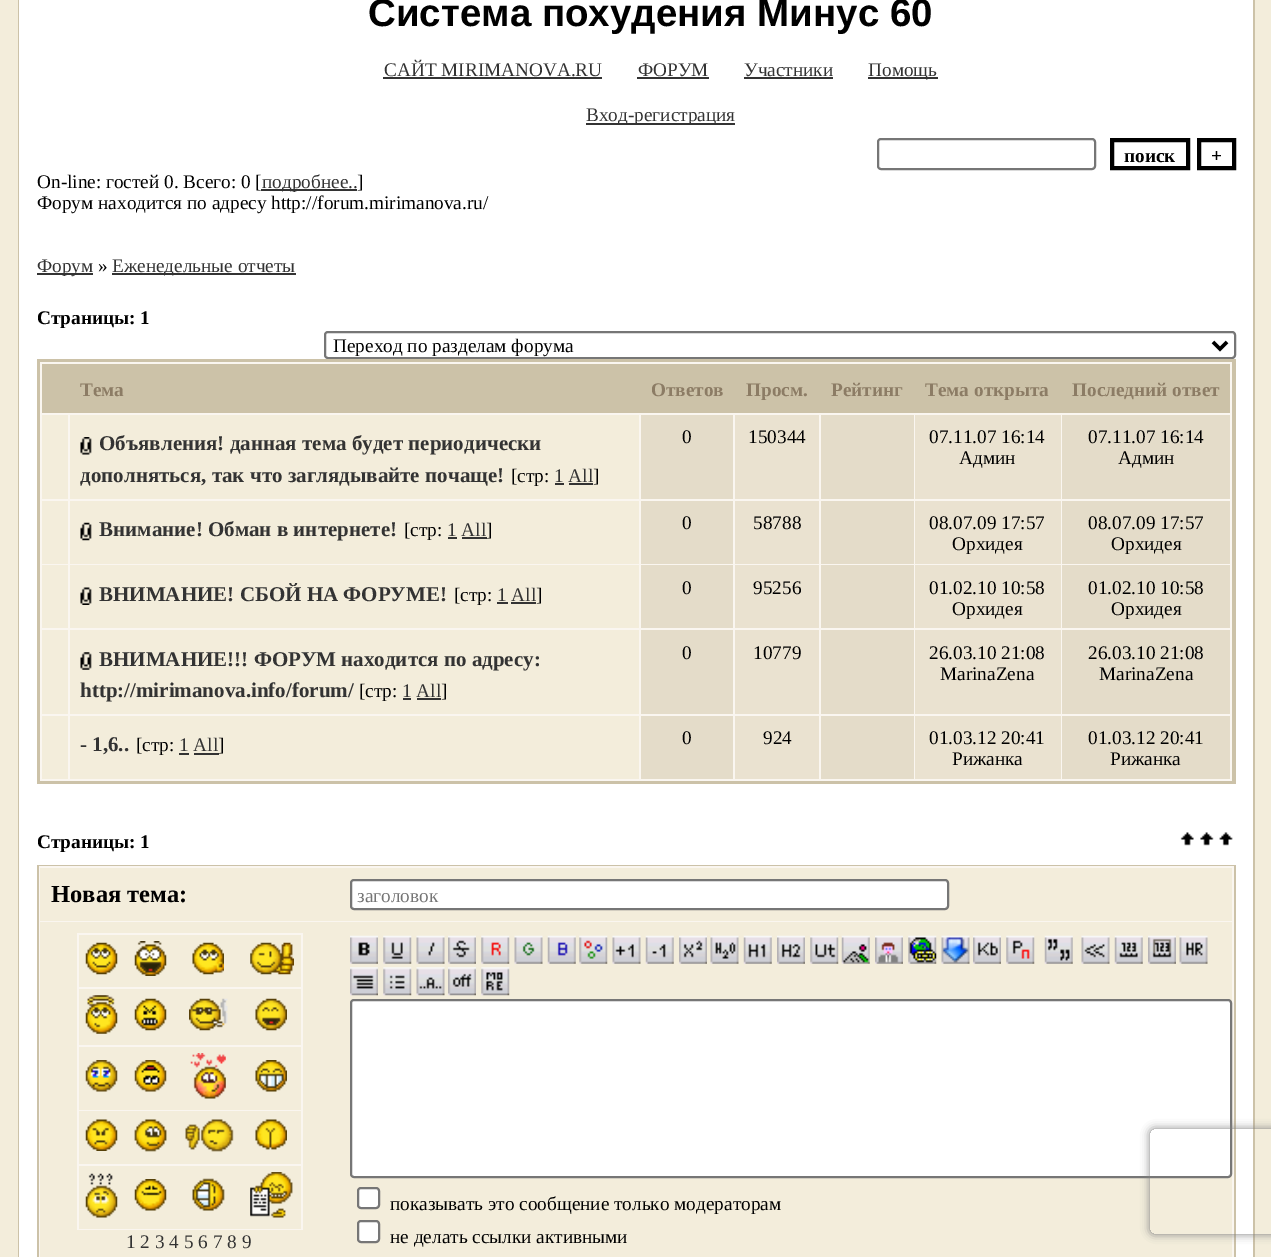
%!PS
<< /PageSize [1271 1257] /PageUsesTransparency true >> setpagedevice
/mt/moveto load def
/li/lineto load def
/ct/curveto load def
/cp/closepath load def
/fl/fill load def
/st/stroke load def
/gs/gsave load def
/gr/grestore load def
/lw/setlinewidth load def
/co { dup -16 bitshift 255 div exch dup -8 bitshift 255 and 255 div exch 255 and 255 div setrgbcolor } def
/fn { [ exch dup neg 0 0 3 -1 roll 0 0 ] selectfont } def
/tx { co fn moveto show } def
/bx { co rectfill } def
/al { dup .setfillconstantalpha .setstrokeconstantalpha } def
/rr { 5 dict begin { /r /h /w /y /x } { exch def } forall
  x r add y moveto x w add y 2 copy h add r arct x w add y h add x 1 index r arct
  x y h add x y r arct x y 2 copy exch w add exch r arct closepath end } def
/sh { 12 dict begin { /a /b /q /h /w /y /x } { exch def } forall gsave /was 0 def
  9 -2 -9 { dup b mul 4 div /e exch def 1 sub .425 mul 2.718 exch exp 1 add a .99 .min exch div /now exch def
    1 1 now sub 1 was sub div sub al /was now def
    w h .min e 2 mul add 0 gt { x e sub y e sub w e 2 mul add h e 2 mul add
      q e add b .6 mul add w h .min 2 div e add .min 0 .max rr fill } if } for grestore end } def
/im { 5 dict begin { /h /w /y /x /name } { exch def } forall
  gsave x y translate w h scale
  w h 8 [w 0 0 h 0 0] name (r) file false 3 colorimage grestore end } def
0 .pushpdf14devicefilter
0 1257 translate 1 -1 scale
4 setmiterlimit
0 0 1271 1257 16#F3EDDB bx
18 0 1237 1257 16#CCC2A8 bx
19 0 1234 1257 16#FFFFFF bx
383 77 219 2 16#333333 bx
637 77 72 2 16#333333 bx
744 77 89 2 16#333333 bx
868 77 70 2 16#333333 bx
586 123 149 2 16#333333 bx
16#767676 co
2 lw
878 139 217 30 3 rr st
16#000000 co
4 lw
1112 140 76 28 rectstroke
1199 140 35 28 rectstroke
261 189 96 2 16#333333 bx
37 273 56 2 16#333333 bx
112 273 184 2 16#333333 bx
16#767676 co
2 lw
325 332 910 26 3 rr st
16#000000 co
3.5 lw
1213 342 mt 1220 349 li 1227 342 li st
37 359 1199 425 16#CCC2A8 bx
40 362 1192 419 16#FAF6F0 bx
42 364 1188 49 16#CCC2A8 bx
42 415 26 84 16#F3EDDB bx
70 415 569 84 16#F3EDDB bx
(media/1.raw) 80 437 12 18 im
555 483 9 2 16#333333 bx
569 483 24 2 16#333333 bx
641 415 92 84 16#E4DCC9 bx
735 415 84 84 16#EAE2D0 bx
821 415 93 84 16#E4DCC9 bx
915 415 146 84 16#EAE2D0 bx
1062 415 168 84 16#E4DCC9 bx
42 501 26 63 16#F3EDDB bx
70 501 569 63 16#F3EDDB bx
(media/2.raw) 80 522 12 19 im
448 537 9 2 16#333333 bx
462 537 25 2 16#333333 bx
641 501 92 63 16#E4DCC9 bx
735 501 84 63 16#EAE2D0 bx
821 501 93 63 16#E4DCC9 bx
915 501 146 63 16#EAE2D0 bx
1062 501 168 63 16#E4DCC9 bx
42 565 26 63 16#F3EDDB bx
70 565 569 63 16#F3EDDB bx
(media/3.raw) 80 587 12 18 im
497 602 11 2 16#333333 bx
511 602 25 2 16#333333 bx
641 565 92 63 16#E4DCC9 bx
735 565 84 63 16#EAE2D0 bx
821 565 93 63 16#E4DCC9 bx
915 565 146 63 16#EAE2D0 bx
1062 565 168 63 16#E4DCC9 bx
42 630 26 84 16#F3EDDB bx
70 630 569 84 16#F3EDDB bx
(media/4.raw) 80 652 12 18 im
403 698 8 2 16#333333 bx
417 698 24 2 16#333333 bx
641 630 92 84 16#E4DCC9 bx
735 630 84 84 16#EAE2D0 bx
821 630 93 84 16#E4DCC9 bx
915 630 146 84 16#EAE2D0 bx
1062 630 168 84 16#E4DCC9 bx
42 716 26 63 16#F3EDDB bx
70 716 569 63 16#F3EDDB bx
179 753 10 2 16#333333 bx
194 753 25 2 16#333333 bx
641 716 92 63 16#E4DCC9 bx
735 716 84 63 16#EAE2D0 bx
821 716 93 63 16#E4DCC9 bx
915 716 146 63 16#EAE2D0 bx
1062 716 168 63 16#E4DCC9 bx
(media/5.raw) 1180 832 53 14 im
37 865 1199 392 16#CCC2A8 bx
39 866 1195 391 16#FAF6F0 bx
40 868 1192 53 16#F3EDDB bx
16#FFFFFF co
351 880 597 29 3 rr gs fl gr
16#767676 co
2 lw
st
40 922 1192 335 16#F3EDDB bx
77 933 226 297 16#FAF6F0 bx
79 935 222 52 16#F3EDDB bx
(media/6.raw) 85 942 33 33 im
(media/7.raw) 134 941 33 35 im
(media/8.raw) 192 942 32 33 im
(media/9.raw) 250 942 44 33 im
79 989 222 56 16#F3EDDB bx
(media/10.raw) 85 995 33 39 im
(media/11.raw) 134 998 33 33 im
(media/12.raw) 189 998 39 33 im
(media/13.raw) 255 998 32 33 im
79 1047 222 63 16#F3EDDB bx
(media/14.raw) 85 1060 33 32 im
(media/15.raw) 134 1060 33 32 im
(media/16.raw) 190 1053 36 46 im
(media/17.raw) 255 1060 32 32 im
79 1111 222 53 16#F3EDDB bx
(media/18.raw) 85 1119 33 32 im
(media/19.raw) 134 1119 33 33 im
(media/20.raw) 185 1119 49 33 im
(media/21.raw) 255 1119 32 31 im
79 1166 222 63 16#F3EDDB bx
(media/22.raw) 85 1173 33 45 im
(media/23.raw) 134 1179 33 32 im
(media/24.raw) 192 1178 33 33 im
(media/25.raw) 250 1172 43 46 im
(media/26.raw) 350 935 28 29 im
(media/27.raw) 383 935 29 29 im
(media/28.raw) 416 935 29 29 im
(media/29.raw) 448 935 28 29 im
(media/30.raw) 481 935 29 29 im
(media/31.raw) 514 935 29 29 im
(media/32.raw) 547 935 29 29 im
(media/33.raw) 579 935 29 29 im
(media/34.raw) 612 935 29 29 im
(media/35.raw) 645 935 29 29 im
(media/36.raw) 679 935 28 29 im
(media/37.raw) 710 935 29 29 im
(media/38.raw) 743 935 29 29 im
(media/39.raw) 777 935 28 29 im
(media/40.raw) 810 935 29 29 im
(media/41.raw) 841 935 29 29 im
(media/42.raw) 875 935 28 29 im
(media/43.raw) 908 935 29 29 im
(media/44.raw) 941 935 29 29 im
(media/45.raw) 973 935 28 29 im
(media/46.raw) 1006 935 29 29 im
(media/47.raw) 1044 935 29 29 im
(media/48.raw) 1081 935 29 29 im
(media/49.raw) 1114 935 29 29 im
(media/50.raw) 1148 935 28 29 im
(media/51.raw) 1179 935 29 29 im
(media/52.raw) 350 967 28 29 im
(media/53.raw) 383 967 29 29 im
(media/54.raw) 416 967 29 29 im
(media/55.raw) 448 967 28 29 im
(media/56.raw) 481 967 29 29 im
16#FFFFFF co
351 1000 880 177 3 rr gs fl gr
16#767676 co
st
16#FFFFFF co
358 1188 21 20 3 rr gs fl gr
16#767676 co
st
16#FFFFFF co
358 1221 21 21 3 rr gs fl gr
16#767676 co
st
gs
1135 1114 mt 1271 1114 li 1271 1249 li 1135 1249 li cp 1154 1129 mt 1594 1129 li 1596 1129 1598 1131 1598 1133 ct 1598 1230 li 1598 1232 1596 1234 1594 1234 ct 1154 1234 li 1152 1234 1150 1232 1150 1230 ct 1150 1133 li 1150 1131 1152 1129 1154 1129 ct cp eoclip newpath
16#808080 co
1150 1129 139 105 4 4.5 1 sh
gr
(Система похудения Минус 60) 368 26 /LiberationSans-Bold 38.5 16#000000 tx
(САЙТ MIRIMANOVA.RU) 384 76 /LiberationSerif-Regular 19.25 16#333333 tx
(ФОРУМ) 638 76 /LiberationSerif-Regular 19.25 16#333333 tx
(Участники) 744 76 /LiberationSerif-Regular 19.25 16#333333 tx
(Помощь) 868 76 /LiberationSerif-Regular 19.25 16#333333 tx
(Вход-регистрация) 586 121 /LiberationSerif-Regular 19.25 16#333333 tx
(поиск) 1124 162 /LiberationSerif-Bold 19.25 16#000000 tx
(+) 1211 162 /LiberationSerif-Bold 19.25 16#000000 tx
(On-line: гостей 0. Всего: 0 [) 37 188 /LiberationSerif-Regular 19.25 16#000000 tx
(подробнее..) 262 188 /LiberationSerif-Regular 19.25 16#333333 tx
(]) 357 188 /LiberationSerif-Regular 19.25 16#000000 tx
(Форум находится по адресу http://forum.mirimanova.ru/) 37 209 /LiberationSerif-Regular 19.25 16#000000 tx
(Форум) 37 272 /LiberationSerif-Regular 19.25 16#333333 tx
(») 98 272 /LiberationSerif-Regular 19.25 16#000000 tx
(Еженедельные отчеты) 112 272 /LiberationSerif-Regular 19.25 16#333333 tx
(Страницы: 1) 37 324 /LiberationSerif-Bold 19.25 16#000000 tx
(Переход по разделам форума) 333 352 /LiberationSerif-Regular 19.25 16#000000 tx
(Тема) 80 396 /LiberationSerif-Bold 19.25 16#8C7C65 tx
(Ответов) 651 396 /LiberationSerif-Bold 19.25 16#8C7C65 tx
(Просм.) 746 396 /LiberationSerif-Bold 19.25 16#8C7C65 tx
(Рейтинг) 831 396 /LiberationSerif-Bold 19.25 16#8C7C65 tx
(Тема открыта) 925 396 /LiberationSerif-Bold 19.25 16#8C7C65 tx
(Последний ответ) 1072 396 /LiberationSerif-Bold 19.25 16#8C7C65 tx
(Объявления! данная тема будет периодически) 99 450 /LiberationSerif-Bold 21 16#333333 tx
(дополняться, так что заглядывайте почаще!) 80 482 /LiberationSerif-Bold 21 16#333333 tx
([стр:) 511 482 /LiberationSerif-Regular 19.25 16#000000 tx
(1 All) 554 482 /LiberationSerif-Regular 19.25 16#333333 tx
(]) 593 482 /LiberationSerif-Regular 19.25 16#000000 tx
(0) 682 443 /LiberationSerif-Regular 19.25 16#000000 tx
(150344) 748 443 /LiberationSerif-Regular 19.25 16#000000 tx
(07.11.07 16:14) 929 443 /LiberationSerif-Regular 19.25 16#000000 tx
(Админ) 959 464 /LiberationSerif-Regular 19.25 16#000000 tx
(07.11.07 16:14) 1088 443 /LiberationSerif-Regular 19.25 16#000000 tx
(Админ) 1118 464 /LiberationSerif-Regular 19.25 16#000000 tx
(Внимание! Обман в интернете!) 99 536 /LiberationSerif-Bold 21 16#333333 tx
([стр:) 404 536 /LiberationSerif-Regular 19.25 16#000000 tx
(1 All) 447 536 /LiberationSerif-Regular 19.25 16#333333 tx
(]) 486 536 /LiberationSerif-Regular 19.25 16#000000 tx
(0) 682 529 /LiberationSerif-Regular 19.25 16#000000 tx
(58788) 753 529 /LiberationSerif-Regular 19.25 16#000000 tx
(08.07.09 17:57) 929 529 /LiberationSerif-Regular 19.25 16#000000 tx
(Орхидея) 952 550 /LiberationSerif-Regular 19.25 16#000000 tx
(08.07.09 17:57) 1088 529 /LiberationSerif-Regular 19.25 16#000000 tx
(Орхидея) 1111 550 /LiberationSerif-Regular 19.25 16#000000 tx
(ВНИМАНИЕ! СБОЙ НА ФОРУМЕ!) 99 601 /LiberationSerif-Bold 21 16#333333 tx
([стр:) 454 601 /LiberationSerif-Regular 19.25 16#000000 tx
(1 All) 497 601 /LiberationSerif-Regular 19.25 16#333333 tx
(]) 536 601 /LiberationSerif-Regular 19.25 16#000000 tx
(0) 682 594 /LiberationSerif-Regular 19.25 16#000000 tx
(95256) 753 594 /LiberationSerif-Regular 19.25 16#000000 tx
(01.02.10 10:58) 929 594 /LiberationSerif-Regular 19.25 16#000000 tx
(Орхидея) 952 615 /LiberationSerif-Regular 19.25 16#000000 tx
(01.02.10 10:58) 1088 594 /LiberationSerif-Regular 19.25 16#000000 tx
(Орхидея) 1111 615 /LiberationSerif-Regular 19.25 16#000000 tx
(ВНИМАНИЕ!!! ФОРУМ находится по адресу:) 99 666 /LiberationSerif-Bold 21 16#333333 tx
(http://mirimanova.info/forum/) 80 697 /LiberationSerif-Bold 21 16#333333 tx
([стр:) 359 697 /LiberationSerif-Regular 19.25 16#000000 tx
(1 All) 402 697 /LiberationSerif-Regular 19.25 16#333333 tx
(]) 441 697 /LiberationSerif-Regular 19.25 16#000000 tx
(0) 682 659 /LiberationSerif-Regular 19.25 16#000000 tx
(10779) 753 659 /LiberationSerif-Regular 19.25 16#000000 tx
(26.03.10 21:08) 929 659 /LiberationSerif-Regular 19.25 16#000000 tx
(MarinaZena) 940 680 /LiberationSerif-Regular 19.25 16#000000 tx
(26.03.10 21:08) 1088 659 /LiberationSerif-Regular 19.25 16#000000 tx
(MarinaZena) 1099 680 /LiberationSerif-Regular 19.25 16#000000 tx
(- 1,6..) 80 751 /LiberationSerif-Bold 21 16#333333 tx
([стр:) 136 751 /LiberationSerif-Regular 19.25 16#000000 tx
(1 All) 179 751 /LiberationSerif-Regular 19.25 16#333333 tx
(]) 218 751 /LiberationSerif-Regular 19.25 16#000000 tx
(0) 682 744 /LiberationSerif-Regular 19.25 16#000000 tx
(924) 763 744 /LiberationSerif-Regular 19.25 16#000000 tx
(01.03.12 20:41) 929 744 /LiberationSerif-Regular 19.25 16#000000 tx
(Рижанка) 952 765 /LiberationSerif-Regular 19.25 16#000000 tx
(01.03.12 20:41) 1088 744 /LiberationSerif-Regular 19.25 16#000000 tx
(Рижанка) 1110 765 /LiberationSerif-Regular 19.25 16#000000 tx
(Страницы: 1) 37 848 /LiberationSerif-Bold 19.25 16#000000 tx
(Новая тема:) 51 902 /LiberationSerif-Bold 24.5 16#000000 tx
(заголовок) 357 902 /LiberationSerif-Regular 19.25 16#757575 tx
(1 2 3 4 5 6 7 8 9) 126 1248 /LiberationSerif-Regular 19.25 16#333333 tx
(показывать это сообщение только модераторам) 390 1210 /LiberationSerif-Regular 19.25 16#000000 tx
(не делать ссылки активными) 390 1243 /LiberationSerif-Regular 19.25 16#000000 tx
.poppdf14devicefilter showpage
